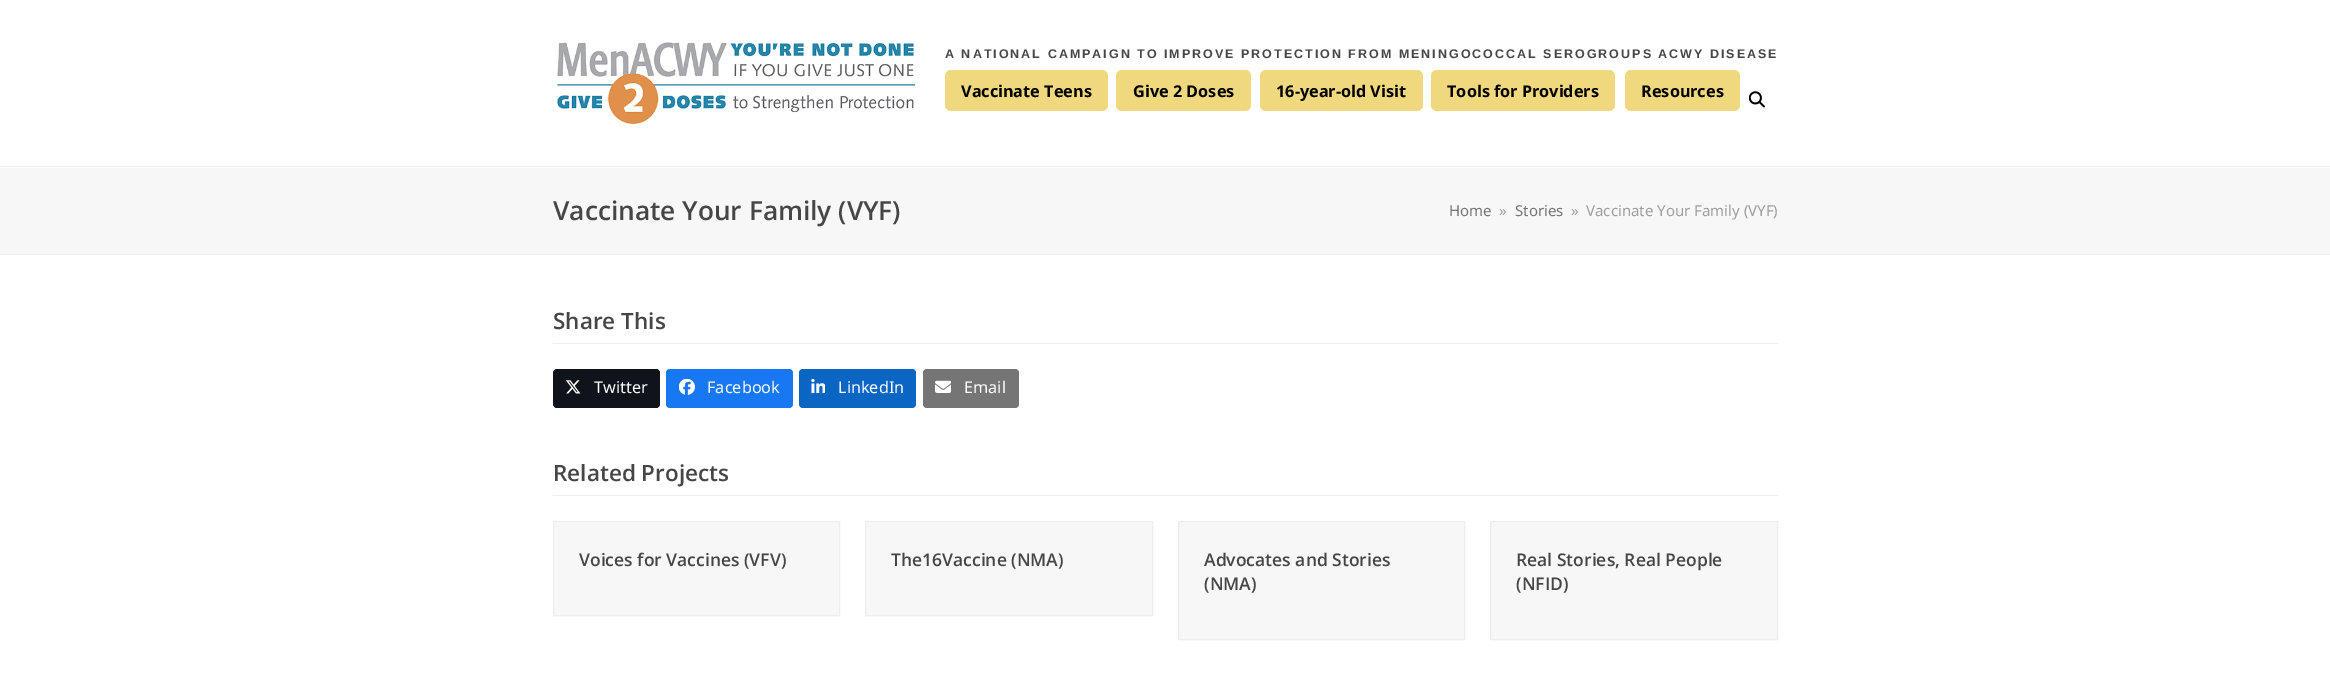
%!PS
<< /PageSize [2330 673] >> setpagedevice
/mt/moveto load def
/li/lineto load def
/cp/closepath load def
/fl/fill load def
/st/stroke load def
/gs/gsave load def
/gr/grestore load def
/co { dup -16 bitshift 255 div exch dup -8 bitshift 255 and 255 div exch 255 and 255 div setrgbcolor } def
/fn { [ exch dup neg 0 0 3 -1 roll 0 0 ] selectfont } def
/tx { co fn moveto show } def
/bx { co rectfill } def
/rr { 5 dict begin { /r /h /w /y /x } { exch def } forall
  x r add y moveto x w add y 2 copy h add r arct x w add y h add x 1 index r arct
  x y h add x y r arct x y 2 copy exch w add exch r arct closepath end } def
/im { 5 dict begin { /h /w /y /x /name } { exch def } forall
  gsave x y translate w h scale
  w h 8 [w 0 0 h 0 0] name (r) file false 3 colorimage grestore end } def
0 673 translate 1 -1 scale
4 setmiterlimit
0 0 2330 673 16#FFFFFF bx
(media/1.raw) 557 42 358 82 im
16#F0D87E co
945 70 163 41 6 rr fl
1116 70 135 41 6 rr fl
1260 70 163 41 6 rr fl
1431 70 184 41 6 rr fl
1625 70 115 41 6 rr fl
(media/2.raw) 1749 91 16 17 im
0 168 2330 86 16#F7F7F7 bx
0 166 2330 1 16#EEEEEE bx
0 254 2330 1 16#EEEEEE bx
553 343 1225 1 16#EEEEEE bx
16#0F141A co
553 369 107 39 4 rr fl
(media/3.raw) 566 380 15 14 im
16#1877F2 co
666 369 127 39 4 rr fl
(media/4.raw) 679 379 16 16 im
16#0A66C2 co
799 369 117 39 4 rr fl
(media/5.raw) 811 379 14 14 im
16#757575 co
923 369 96 39 4 rr fl
(media/6.raw) 935 380 16 13 im
553 495 1225 1 16#EEEEEE bx
16#F7F7F7 co
553.5 521.5 mt 839.5 521.5 li 839.5 615.5 li 553.5 615.5 li cp gs fl gr
16#EEEEEE co
st
16#F7F7F7 co
865.5 521.5 mt 1152.5 521.5 li 1152.5 615.5 li 865.5 615.5 li cp gs fl gr
16#EEEEEE co
st
16#F7F7F7 co
1178.5 521.5 mt 1464.5 521.5 li 1464.5 639.5 li 1178.5 639.5 li cp gs fl gr
16#EEEEEE co
st
16#F7F7F7 co
1490.5 521.5 mt 1777.5 521.5 li 1777.5 639.5 li 1490.5 639.5 li cp gs fl gr
16#EEEEEE co
st
/Arimo-Bold 12.5 fn
16#474647 co
945 58 mt 2 0 (A NATIONAL CAMPAIGN TO IMPROVE PROTECTION FROM MENINGOCOCCAL SEROGROUPS ACWY DISEASE) ashow
(Vaccinate Teens) 961 97 /NotoSans-Bold 16.25 16#000000 tx
(Give 2 Doses) 1133 97 /NotoSans-Bold 16.25 16#000000 tx
(16-year-old Visit) 1276 97 /NotoSans-Bold 16.25 16#000000 tx
(Tools for Providers) 1447 97 /NotoSans-Bold 16.25 16#000000 tx
(Resources) 1641 97 /NotoSans-Bold 16.25 16#000000 tx
(Vaccinate Your Family \(VYF\)) 553 220 /OpenSans-SemiBold 26.25 16#474647 tx
(Home) 1449 216 /NotoSans-Regular 15 16#757575 tx
(») 1499 216 /NotoSans-Regular 15 16#9E9E9E tx
(Stories) 1515 216 /NotoSans-Regular 15 16#757575 tx
(») 1571 216 /NotoSans-Regular 15 16#9E9E9E tx
(Vaccinate Your Family \(VYF\)) 1586 216 /NotoSans-Regular 15 16#9E9E9E tx
(Share This) 553 329 /OpenSans-SemiBold 22.5 16#474647 tx
(Twitter) 594 393 /NotoSans-Regular 16.25 16#FFFFFF tx
(Facebook) 707 393 /NotoSans-Regular 16.25 16#FFFFFF tx
(LinkedIn) 838 393 /NotoSans-Regular 16.25 16#FFFFFF tx
(Email) 964 393 /NotoSans-Regular 16.25 16#FFFFFF tx
(Related Projects) 553 481 /OpenSans-SemiBold 22.5 16#474647 tx
(Voices for Vaccines \(VFV\)) 579 566 /OpenSans-SemiBold 17.5 16#474647 tx
(The16Vaccine \(NMA\)) 891 566 /OpenSans-SemiBold 17.5 16#474647 tx
(Advocates and Stories) 1204 566 /OpenSans-SemiBold 17.5 16#474647 tx
(\(NMA\)) 1204 590 /OpenSans-SemiBold 17.5 16#474647 tx
(Real Stories, Real People) 1516 566 /OpenSans-SemiBold 17.5 16#474647 tx
(\(NFID\)) 1516 590 /OpenSans-SemiBold 17.5 16#474647 tx
showpage
